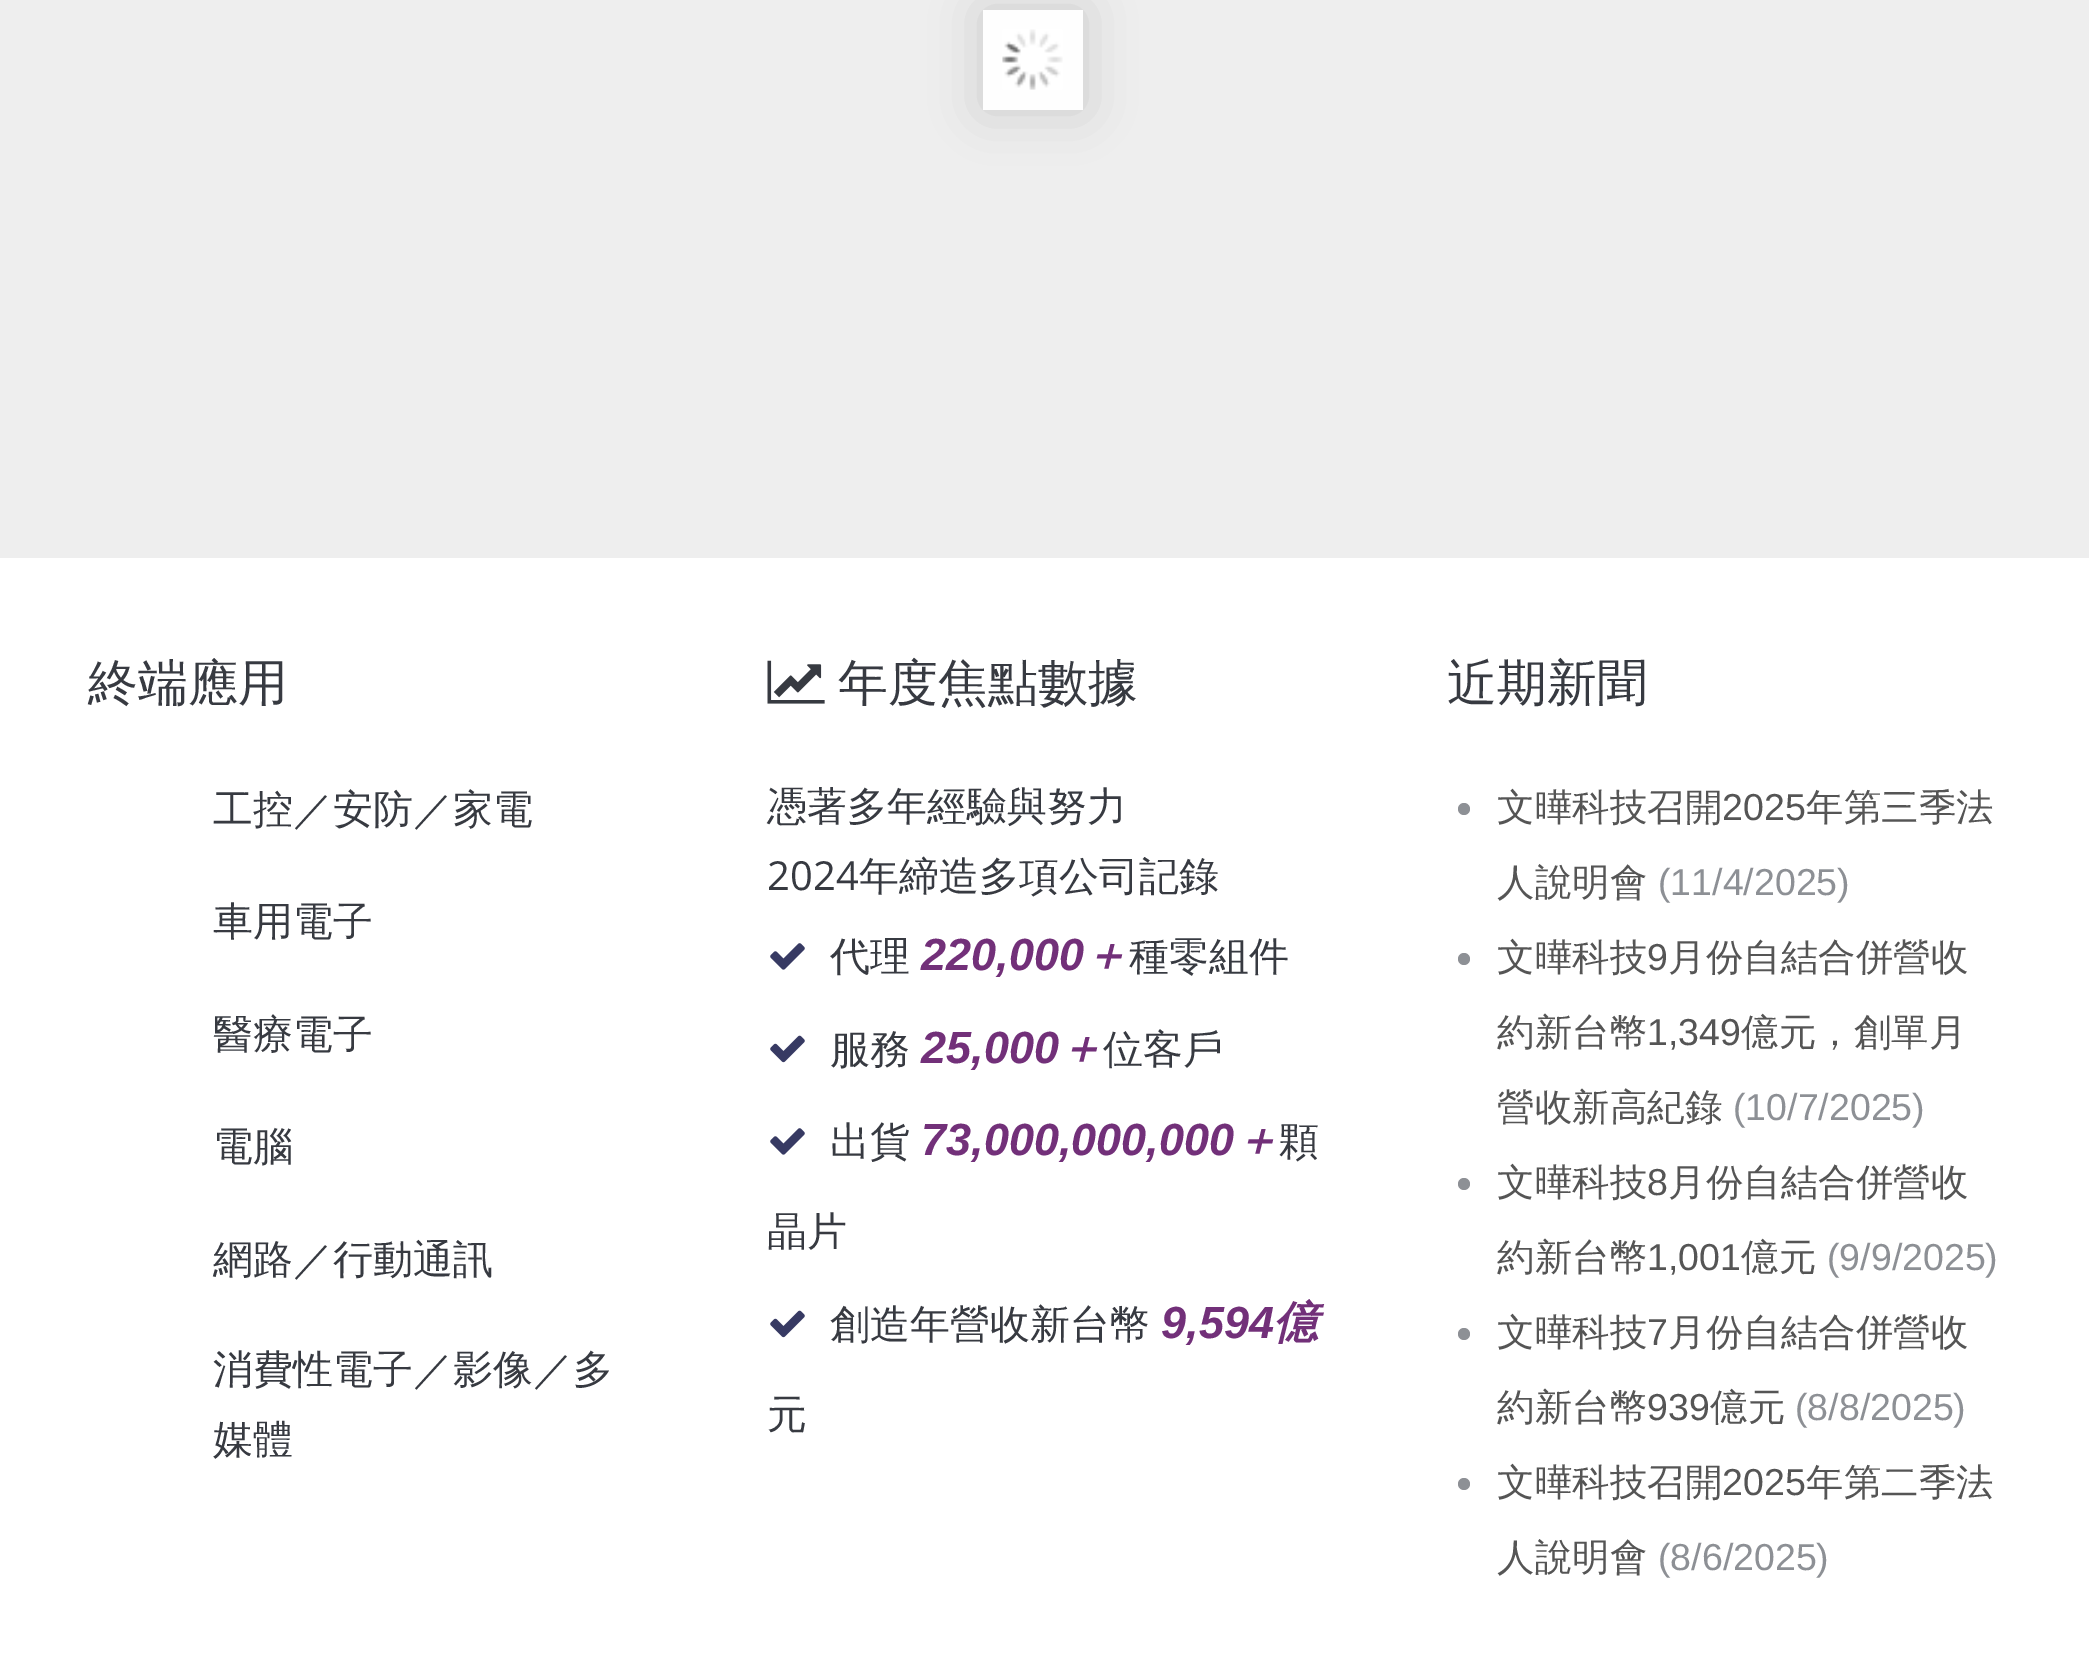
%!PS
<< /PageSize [2089 1671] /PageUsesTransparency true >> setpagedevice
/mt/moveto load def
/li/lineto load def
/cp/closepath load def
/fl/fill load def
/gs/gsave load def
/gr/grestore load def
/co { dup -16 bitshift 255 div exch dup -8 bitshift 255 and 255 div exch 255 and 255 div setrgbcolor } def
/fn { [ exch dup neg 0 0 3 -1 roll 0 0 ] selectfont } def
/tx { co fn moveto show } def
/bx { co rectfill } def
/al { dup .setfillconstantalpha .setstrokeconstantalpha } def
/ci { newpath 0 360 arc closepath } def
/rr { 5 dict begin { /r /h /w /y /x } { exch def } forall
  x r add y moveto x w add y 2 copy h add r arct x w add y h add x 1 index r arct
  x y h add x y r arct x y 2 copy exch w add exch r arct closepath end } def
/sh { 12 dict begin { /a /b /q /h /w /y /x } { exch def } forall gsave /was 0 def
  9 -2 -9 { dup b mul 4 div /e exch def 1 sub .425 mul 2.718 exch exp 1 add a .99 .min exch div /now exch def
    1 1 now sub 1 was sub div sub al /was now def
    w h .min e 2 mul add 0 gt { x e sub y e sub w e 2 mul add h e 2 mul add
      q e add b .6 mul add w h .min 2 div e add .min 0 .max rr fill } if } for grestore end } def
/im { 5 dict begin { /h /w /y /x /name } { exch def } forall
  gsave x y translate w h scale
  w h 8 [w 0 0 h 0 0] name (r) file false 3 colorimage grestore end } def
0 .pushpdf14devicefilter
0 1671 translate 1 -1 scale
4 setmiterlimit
0 0 2089 1671 16#FFFFFF bx
0 0 2089 558 16#EEEEEE bx
gs
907 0 mt 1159 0 li 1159 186 li 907 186 li cp 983 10 mt 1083 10 li 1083 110 li 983 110 li cp eoclip newpath
16#000000 co
983 10 100 100 0 25 .15 sh
gr
0.95 al
983 10 100 100 16#FFFFFF bx
1 al
(media/1.raw) 1002 29 61 61 im
(media/2.raw) 767 660 58 44 im
(media/3.raw) 770 943 35 27 im
(media/4.raw) 770 1035 35 28 im
(media/3.raw) 770 1128 35 27 im
(media/4.raw) 770 1310 35 28 im
16#8D9095 co
1464 809 6 ci fl
1464 959 6 ci fl
1464 1184 6 ci fl
1464 1334 6 ci fl
1464 1484 6 ci fl
(終端應用) 88 700 /WenQuanYiZenHei-Medium 50 16#373A41 tx
(工控／安防／家電) 213 823 /WenQuanYiZenHei-Medium 40 16#373A41 tx
(車用電子) 213 935 /WenQuanYiZenHei-Medium 40 16#373A41 tx
(醫療電子) 213 1048 /WenQuanYiZenHei-Medium 40 16#373A41 tx
(電腦) 213 1160 /WenQuanYiZenHei-Medium 40 16#373A41 tx
(網路／行動通訊) 213 1273 /WenQuanYiZenHei-Medium 40 16#373A41 tx
(消費性電子／影像／多) 213 1383 /WenQuanYiZenHei-Medium 40 16#373A41 tx
(媒體) 213 1453 /WenQuanYiZenHei-Medium 40 16#373A41 tx
(年度焦點數據) 838 700 /WenQuanYiZenHei-Medium 50 16#373A41 tx
(憑著多年經驗與努力) 767 820 /WenQuanYiZenHei-Medium 40 16#373A41 tx
(2024) 767 890 /OpenSans-Regular 40 16#373A41 tx
(年締造多項公司記錄) 859 890 /WenQuanYiZenHei-Medium 40 16#373A41 tx
(代理) 830 970 /WenQuanYiZenHei-Medium 40 16#373A41 tx
(220,000) 921 970 /LiberationSans-BoldItalic 45 16#723079 tx
(＋) 1083 970 /WenQuanYiZenHei-BoldItalic 45 16#723079 tx
(種零組件) 1129 970 /WenQuanYiZenHei-Medium 40 16#373A41 tx
(服務) 830 1063 /WenQuanYiZenHei-Medium 40 16#373A41 tx
(25,000) 921 1063 /LiberationSans-BoldItalic 45 16#723079 tx
(＋) 1058 1063 /WenQuanYiZenHei-BoldItalic 45 16#723079 tx
(位客戶) 1103 1063 /WenQuanYiZenHei-Medium 40 16#373A41 tx
(出貨) 830 1155 /WenQuanYiZenHei-Medium 40 16#373A41 tx
(73,000,000,000) 921 1155 /LiberationSans-BoldItalic 45 16#723079 tx
(＋) 1234 1155 /WenQuanYiZenHei-BoldItalic 45 16#723079 tx
(顆) 1279 1155 /WenQuanYiZenHei-Medium 40 16#373A41 tx
(晶片) 767 1245 /WenQuanYiZenHei-Medium 40 16#373A41 tx
(創造年營收新台幣) 830 1338 /WenQuanYiZenHei-Medium 40 16#373A41 tx
(9,594) 1161 1338 /LiberationSans-BoldItalic 45 16#723079 tx
(億) 1273 1338 /WenQuanYiZenHei-BoldItalic 45 16#723079 tx
(元) 767 1428 /WenQuanYiZenHei-Medium 40 16#373A41 tx
(近期新聞) 1447 700 /WenQuanYiZenHei-Medium 50 16#373A41 tx
(文曄科技召開) 1497 820 /WenQuanYiZenHei-Medium 37.5 16#555555 tx
(2025) 1722 820 /LiberationSans-Regular 37.5 16#555555 tx
(年第三季法) 1806 820 /WenQuanYiZenHei-Medium 37.5 16#555555 tx
(人說明會) 1497 895 /WenQuanYiZenHei-Medium 37.5 16#555555 tx
(\(11/4/2025\)) 1658 895 /LiberationSans-Regular 37.5 16#8D9095 tx
(文曄科技) 1497 970 /WenQuanYiZenHei-Medium 37.5 16#555555 tx
(9) 1647 970 /LiberationSans-Regular 37.5 16#555555 tx
(月份自結合併營收) 1668 970 /WenQuanYiZenHei-Medium 37.5 16#555555 tx
(約新台幣) 1497 1045 /WenQuanYiZenHei-Medium 37.5 16#555555 tx
(1,349) 1647 1045 /LiberationSans-Regular 37.5 16#555555 tx
(億元，創單月) 1741 1045 /WenQuanYiZenHei-Medium 37.5 16#555555 tx
(營收新高紀錄) 1497 1120 /WenQuanYiZenHei-Medium 37.5 16#555555 tx
(\(10/7/2025\)) 1733 1120 /LiberationSans-Regular 37.5 16#8D9095 tx
(文曄科技) 1497 1195 /WenQuanYiZenHei-Medium 37.5 16#555555 tx
(8) 1647 1195 /LiberationSans-Regular 37.5 16#555555 tx
(月份自結合併營收) 1668 1195 /WenQuanYiZenHei-Medium 37.5 16#555555 tx
(約新台幣) 1497 1270 /WenQuanYiZenHei-Medium 37.5 16#555555 tx
(1,001) 1647 1270 /LiberationSans-Regular 37.5 16#555555 tx
(億元) 1741 1270 /WenQuanYiZenHei-Medium 37.5 16#555555 tx
(\(9/9/2025\)) 1827 1270 /LiberationSans-Regular 37.5 16#8D9095 tx
(文曄科技) 1497 1345 /WenQuanYiZenHei-Medium 37.5 16#555555 tx
(7) 1647 1345 /LiberationSans-Regular 37.5 16#555555 tx
(月份自結合併營收) 1668 1345 /WenQuanYiZenHei-Medium 37.5 16#555555 tx
(約新台幣) 1497 1420 /WenQuanYiZenHei-Medium 37.5 16#555555 tx
(939) 1647 1420 /LiberationSans-Regular 37.5 16#555555 tx
(億元) 1710 1420 /WenQuanYiZenHei-Medium 37.5 16#555555 tx
(\(8/8/2025\)) 1795 1420 /LiberationSans-Regular 37.5 16#8D9095 tx
(文曄科技召開) 1497 1495 /WenQuanYiZenHei-Medium 37.5 16#555555 tx
(2025) 1722 1495 /LiberationSans-Regular 37.5 16#555555 tx
(年第二季法) 1806 1495 /WenQuanYiZenHei-Medium 37.5 16#555555 tx
(人說明會) 1497 1570 /WenQuanYiZenHei-Medium 37.5 16#555555 tx
(\(8/6/2025\)) 1658 1570 /LiberationSans-Regular 37.5 16#8D9095 tx
.poppdf14devicefilter showpage
